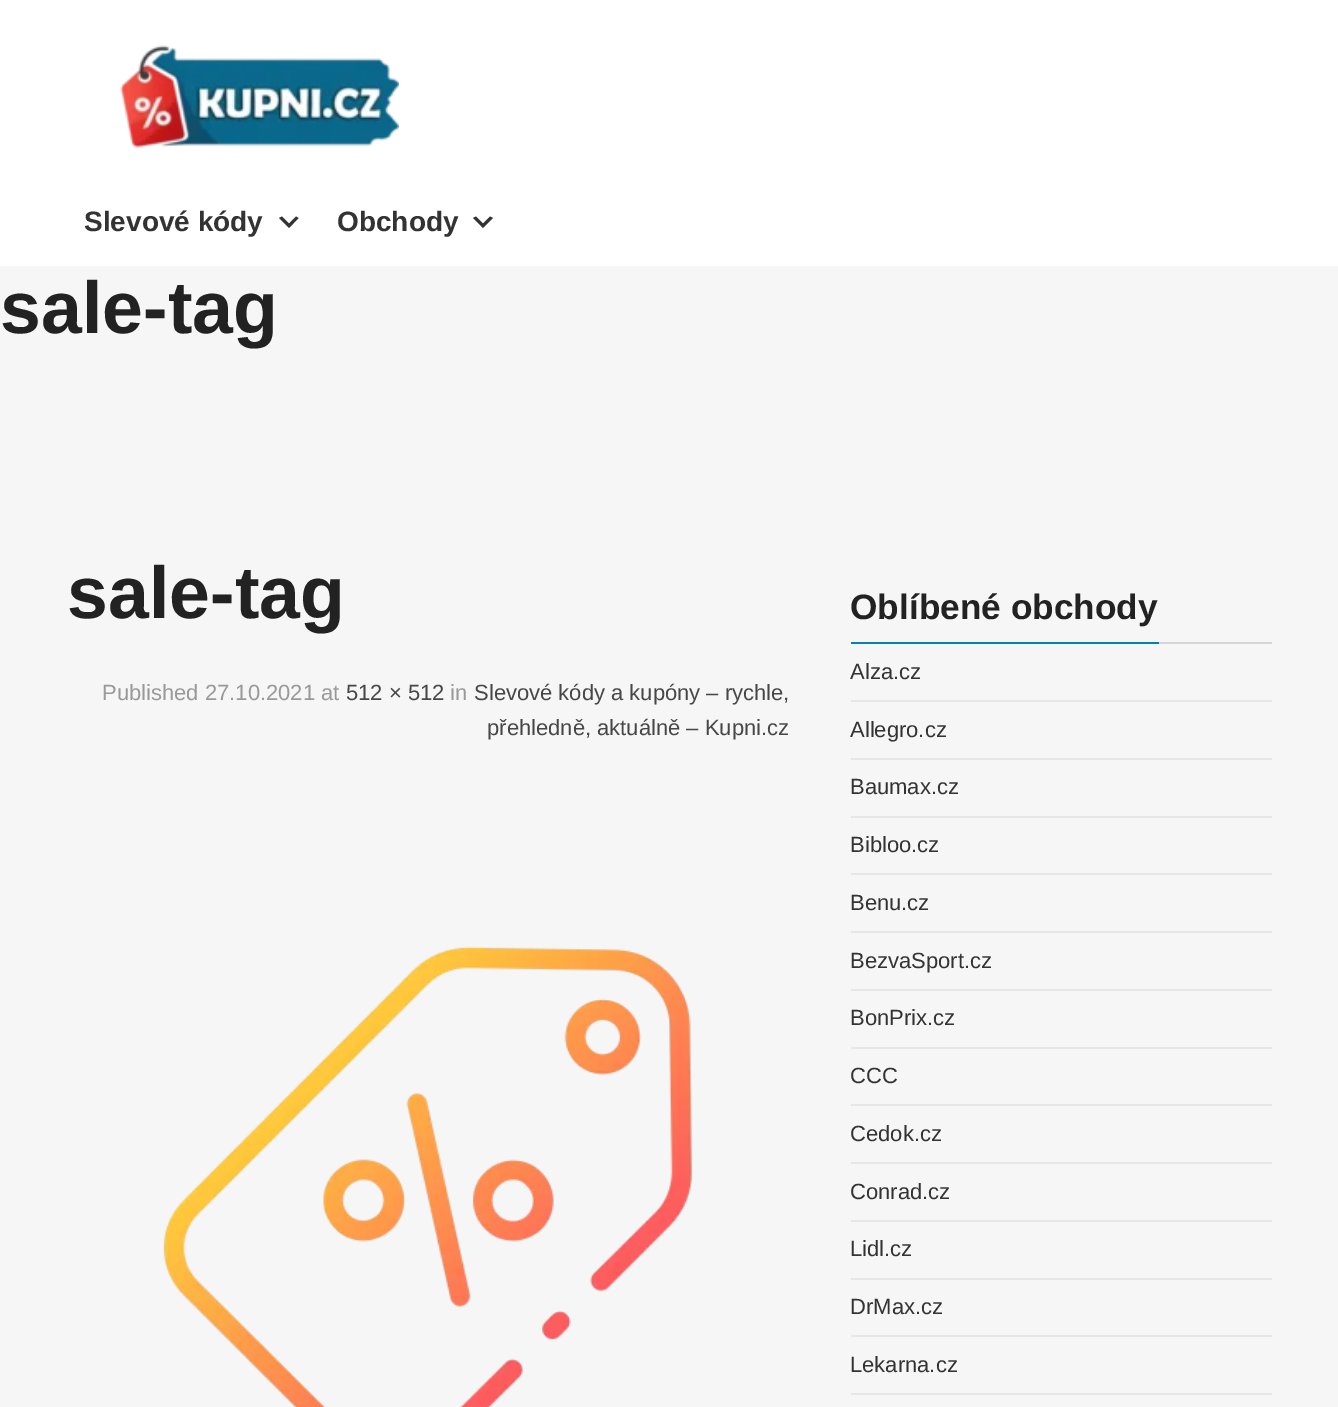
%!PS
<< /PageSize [1338 1407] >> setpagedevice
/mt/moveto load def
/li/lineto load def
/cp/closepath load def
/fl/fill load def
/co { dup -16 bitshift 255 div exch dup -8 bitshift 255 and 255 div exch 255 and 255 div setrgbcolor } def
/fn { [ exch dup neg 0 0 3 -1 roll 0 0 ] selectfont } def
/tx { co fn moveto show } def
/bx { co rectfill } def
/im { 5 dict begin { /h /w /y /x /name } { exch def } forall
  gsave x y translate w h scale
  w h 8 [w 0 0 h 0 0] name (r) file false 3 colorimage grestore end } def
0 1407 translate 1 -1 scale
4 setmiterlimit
0 0 1338 1407 16#F6F6F6 bx
0 0 1338 266 16#FFFFFF bx
(media/1.raw) 120 45 279 103 im
16#333333 co
282 216.5 mt 289 223.5 li 296 216.5 li 298.5 218 li 289 228 li 279 218 li cp fl
476 216.5 mt 483 223.5 li 490 216.5 li 493 218 li 483 228 li 473 218 li cp fl
(media/2.raw) 163 946 530 461 im
1159 642 113 2 16#D6D6D6 bx
851 642 308 2 16#0084B1 bx
851 700 421 2 16#E6E6E6 bx
851 758 421 2 16#E6E6E6 bx
851 816 421 2 16#E6E6E6 bx
851 873 421 2 16#E6E6E6 bx
851 931 421 2 16#E6E6E6 bx
851 989 421 2 16#E6E6E6 bx
851 1047 421 2 16#E6E6E6 bx
851 1104 421 2 16#E6E6E6 bx
851 1162 421 2 16#E6E6E6 bx
851 1220 421 2 16#E6E6E6 bx
851 1278 421 2 16#E6E6E6 bx
851 1335 421 2 16#E6E6E6 bx
851 1393 421 2 16#E6E6E6 bx
(Slevové kódy) 84 231 /LiberationSans-Bold 28 16#333333 tx
(Obchody) 337 231 /LiberationSans-Bold 28 16#333333 tx
(sale-tag) 0 333 /LiberationSans-Bold 73.5 16#222222 tx
(sale-tag) 67 618 /LiberationSans-Bold 73.5 16#222222 tx
(Published 27.10.2021 at) 102 700 /LiberationSans-Regular 22 16#999999 tx
(512 × 512) 346 700 /LiberationSans-Regular 22 16#474747 tx
(in) 450 700 /LiberationSans-Regular 22 16#999999 tx
(Slevové kódy a kupóny – rychle,) 474 700 /LiberationSans-Regular 22 16#474747 tx
(přehledně, aktuálně – Kupni.cz) 487 735 /LiberationSans-Regular 22 16#474747 tx
(Oblíbené obchody) 850 619 /LiberationSans-Bold 35.25 16#222222 tx
(Alza.cz) 850 679 /LiberationSans-Regular 22 16#333333 tx
(Allegro.cz) 850 737 /LiberationSans-Regular 22 16#333333 tx
(Baumax.cz) 850 794 /LiberationSans-Regular 22 16#333333 tx
(Bibloo.cz) 850 852 /LiberationSans-Regular 22 16#333333 tx
(Benu.cz) 850 910 /LiberationSans-Regular 22 16#333333 tx
(BezvaSport.cz) 850 968 /LiberationSans-Regular 22 16#333333 tx
(BonPrix.cz) 850 1025 /LiberationSans-Regular 22 16#333333 tx
(CCC) 850 1083 /LiberationSans-Regular 22 16#333333 tx
(Cedok.cz) 850 1141 /LiberationSans-Regular 22 16#333333 tx
(Conrad.cz) 850 1199 /LiberationSans-Regular 22 16#333333 tx
(Lidl.cz) 850 1256 /LiberationSans-Regular 22 16#333333 tx
(DrMax.cz) 850 1314 /LiberationSans-Regular 22 16#333333 tx
(Lekarna.cz) 850 1372 /LiberationSans-Regular 22 16#333333 tx
showpage
